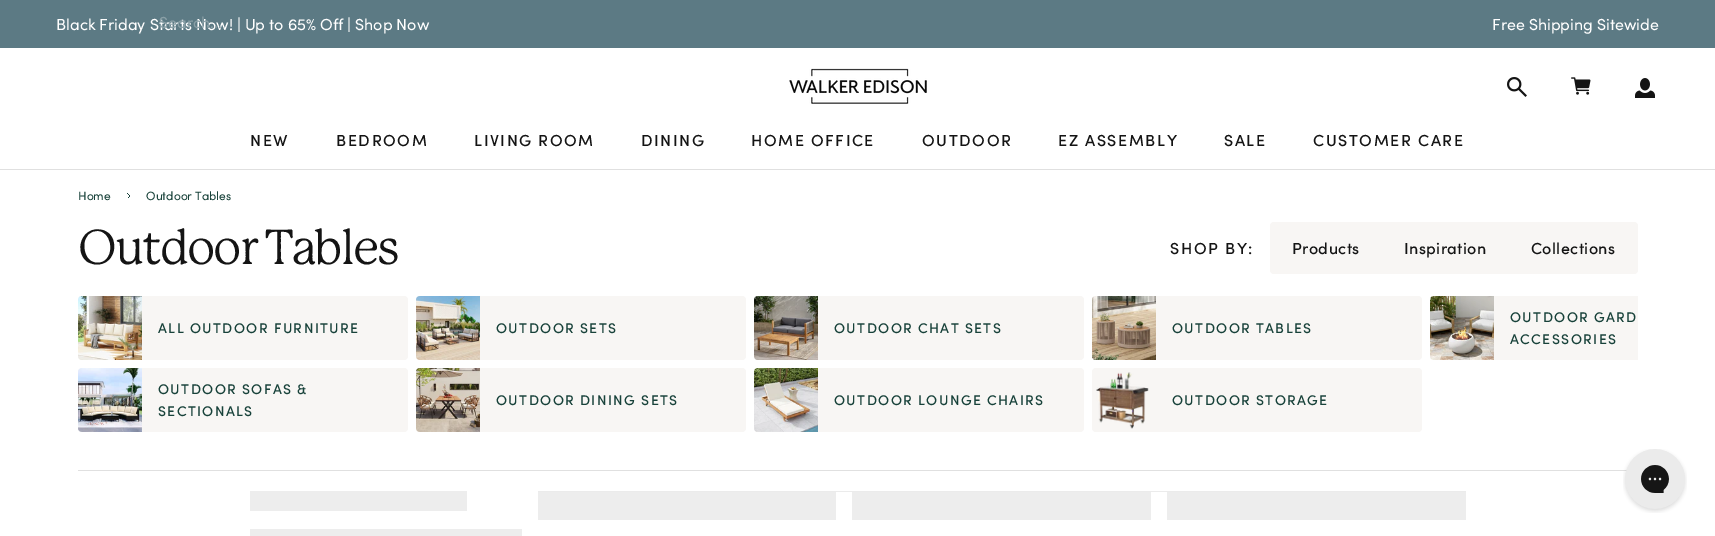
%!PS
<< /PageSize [1715 536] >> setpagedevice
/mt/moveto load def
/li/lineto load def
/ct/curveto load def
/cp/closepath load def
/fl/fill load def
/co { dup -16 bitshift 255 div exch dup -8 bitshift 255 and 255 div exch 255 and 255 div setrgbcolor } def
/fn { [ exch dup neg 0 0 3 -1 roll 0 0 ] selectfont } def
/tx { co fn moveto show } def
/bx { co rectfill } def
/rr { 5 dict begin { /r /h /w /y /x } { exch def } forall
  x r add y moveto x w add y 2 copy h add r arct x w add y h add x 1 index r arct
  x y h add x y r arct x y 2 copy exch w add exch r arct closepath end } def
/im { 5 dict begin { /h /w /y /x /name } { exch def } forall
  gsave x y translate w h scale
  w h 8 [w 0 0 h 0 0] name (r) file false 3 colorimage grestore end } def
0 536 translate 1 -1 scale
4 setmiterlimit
0 0 1715 536 16#FFFFFF bx
0 0 1715 48 16#5C7A84 bx
0 169 1715 1 16#E0E0E0 bx
(media/1.raw) 789 68 138 36 im
(media/2.raw) 1507 77 20 20 im
(media/3.raw) 1571 77 20 18 im
(media/4.raw) 1635 78 20 20 im
(media/5.raw) 127 193 3 5 im
16#F8F6F4 co
1270 222 368 52 4 rr fl
78 470 1549 1 16#E0E0E0 bx
16#F8F6F4 co
78 296 330 64 4 rr fl
(media/6.raw) 78 296 64 64 im
416 296 330 64 4 rr fl
(media/7.raw) 416 296 64 64 im
754 296 330 64 4 rr fl
(media/8.raw) 754 296 64 64 im
1092 296 330 64 4 rr fl
(media/9.raw) 1092 296 64 64 im
1434 296 mt 1638 296 li 1638 360 li 1434 360 li 1432 360 1430 358 1430 356 ct 1430 300 li 1430 298 1432 296 1434 296 ct cp fl
(media/10.raw) 1430 296 64 64 im
78 368 330 64 4 rr fl
(media/11.raw) 78 368 64 64 im
416 368 330 64 4 rr fl
(media/12.raw) 416 368 64 64 im
754 368 330 64 4 rr fl
(media/13.raw) 754 368 64 64 im
1092 368 330 64 4 rr fl
(media/14.raw) 1096 372 53 57 im
250 491 217 20 16#EDEDED bx
250 529 272 7 16#EDEDED bx
538 491 928 1 16#EBEBEB bx
538 492 298 28 16#EDEDED bx
852 492 299 28 16#EDEDED bx
1167 492 299 28 16#EDEDED bx
(media/15.raw) 1623 449 64 64 im
(Black Friday Starts Now! | Up to 65% Off | Shop Now) 56 30 /Sofia-Regular 16 16#FFFFFF tx
(Search...) 159 28 /Sofia-Regular 16 16#899FA6 tx
(Free Shipping Sitewide) 1492 30 /Sofia-Regular 16 16#FFFFFF tx
/Sofia-Medium 16 fn
16#141414 co
250 146 mt 1.6 0 (NEW) ashow
336 146 mt 1.6 0 (BEDROOM) ashow
474 146 mt 1.6 0 (LIVING ROOM) ashow
641 146 mt 1.6 0 (DINING) ashow
751 146 mt 1.6 0 (HOME OFFICE) ashow
922 146 mt 1.6 0 (OUTDOOR) ashow
1058 146 mt 1.6 0 (EZ ASSEMBLY) ashow
1224 146 mt 1.6 0 (SALE) ashow
1313 146 mt 1.6 0 (CUSTOMER CARE) ashow
(Home) 78 200 /Sofia-Regular 12 16#18423A tx
(Outdoor Tables) 146 200 /Sofia-Regular 12 16#18423A tx
/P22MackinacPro-Regular 48 fn
16#141414 co
78 264 mt -2 0 (Outdoor Tables) ashow
/Sofia-Medium 16 fn
1170 254 mt 1.6 0 (SHOP BY:) ashow
1292 254 mt .4 0 (Products) ashow
1404 254 mt .4 0 (Inspiration) ashow
1531 254 mt .4 0 (Collections) ashow
/Sofia-Medium 14 fn
16#18423A co
158 333 mt 1.4 0 (ALL OUTDOOR FURNITURE) ashow
496 333 mt 1.4 0 (OUTDOOR SETS) ashow
834 333 mt 1.4 0 (OUTDOOR CHAT SETS) ashow
1172 333 mt 1.4 0 (OUTDOOR TABLES) ashow
1510 322 mt 1.4 0 (OUTDOOR GARD) ashow
1510 344 mt 1.4 0 (ACCESSORIES) ashow
158 394 mt 1.4 0 (OUTDOOR SOFAS &) ashow
158 416 mt 1.4 0 (SECTIONALS) ashow
496 405 mt 1.4 0 (OUTDOOR DINING SETS) ashow
834 405 mt 1.4 0 (OUTDOOR LOUNGE CHAIRS) ashow
1172 405 mt 1.4 0 (OUTDOOR STORAGE) ashow
showpage
